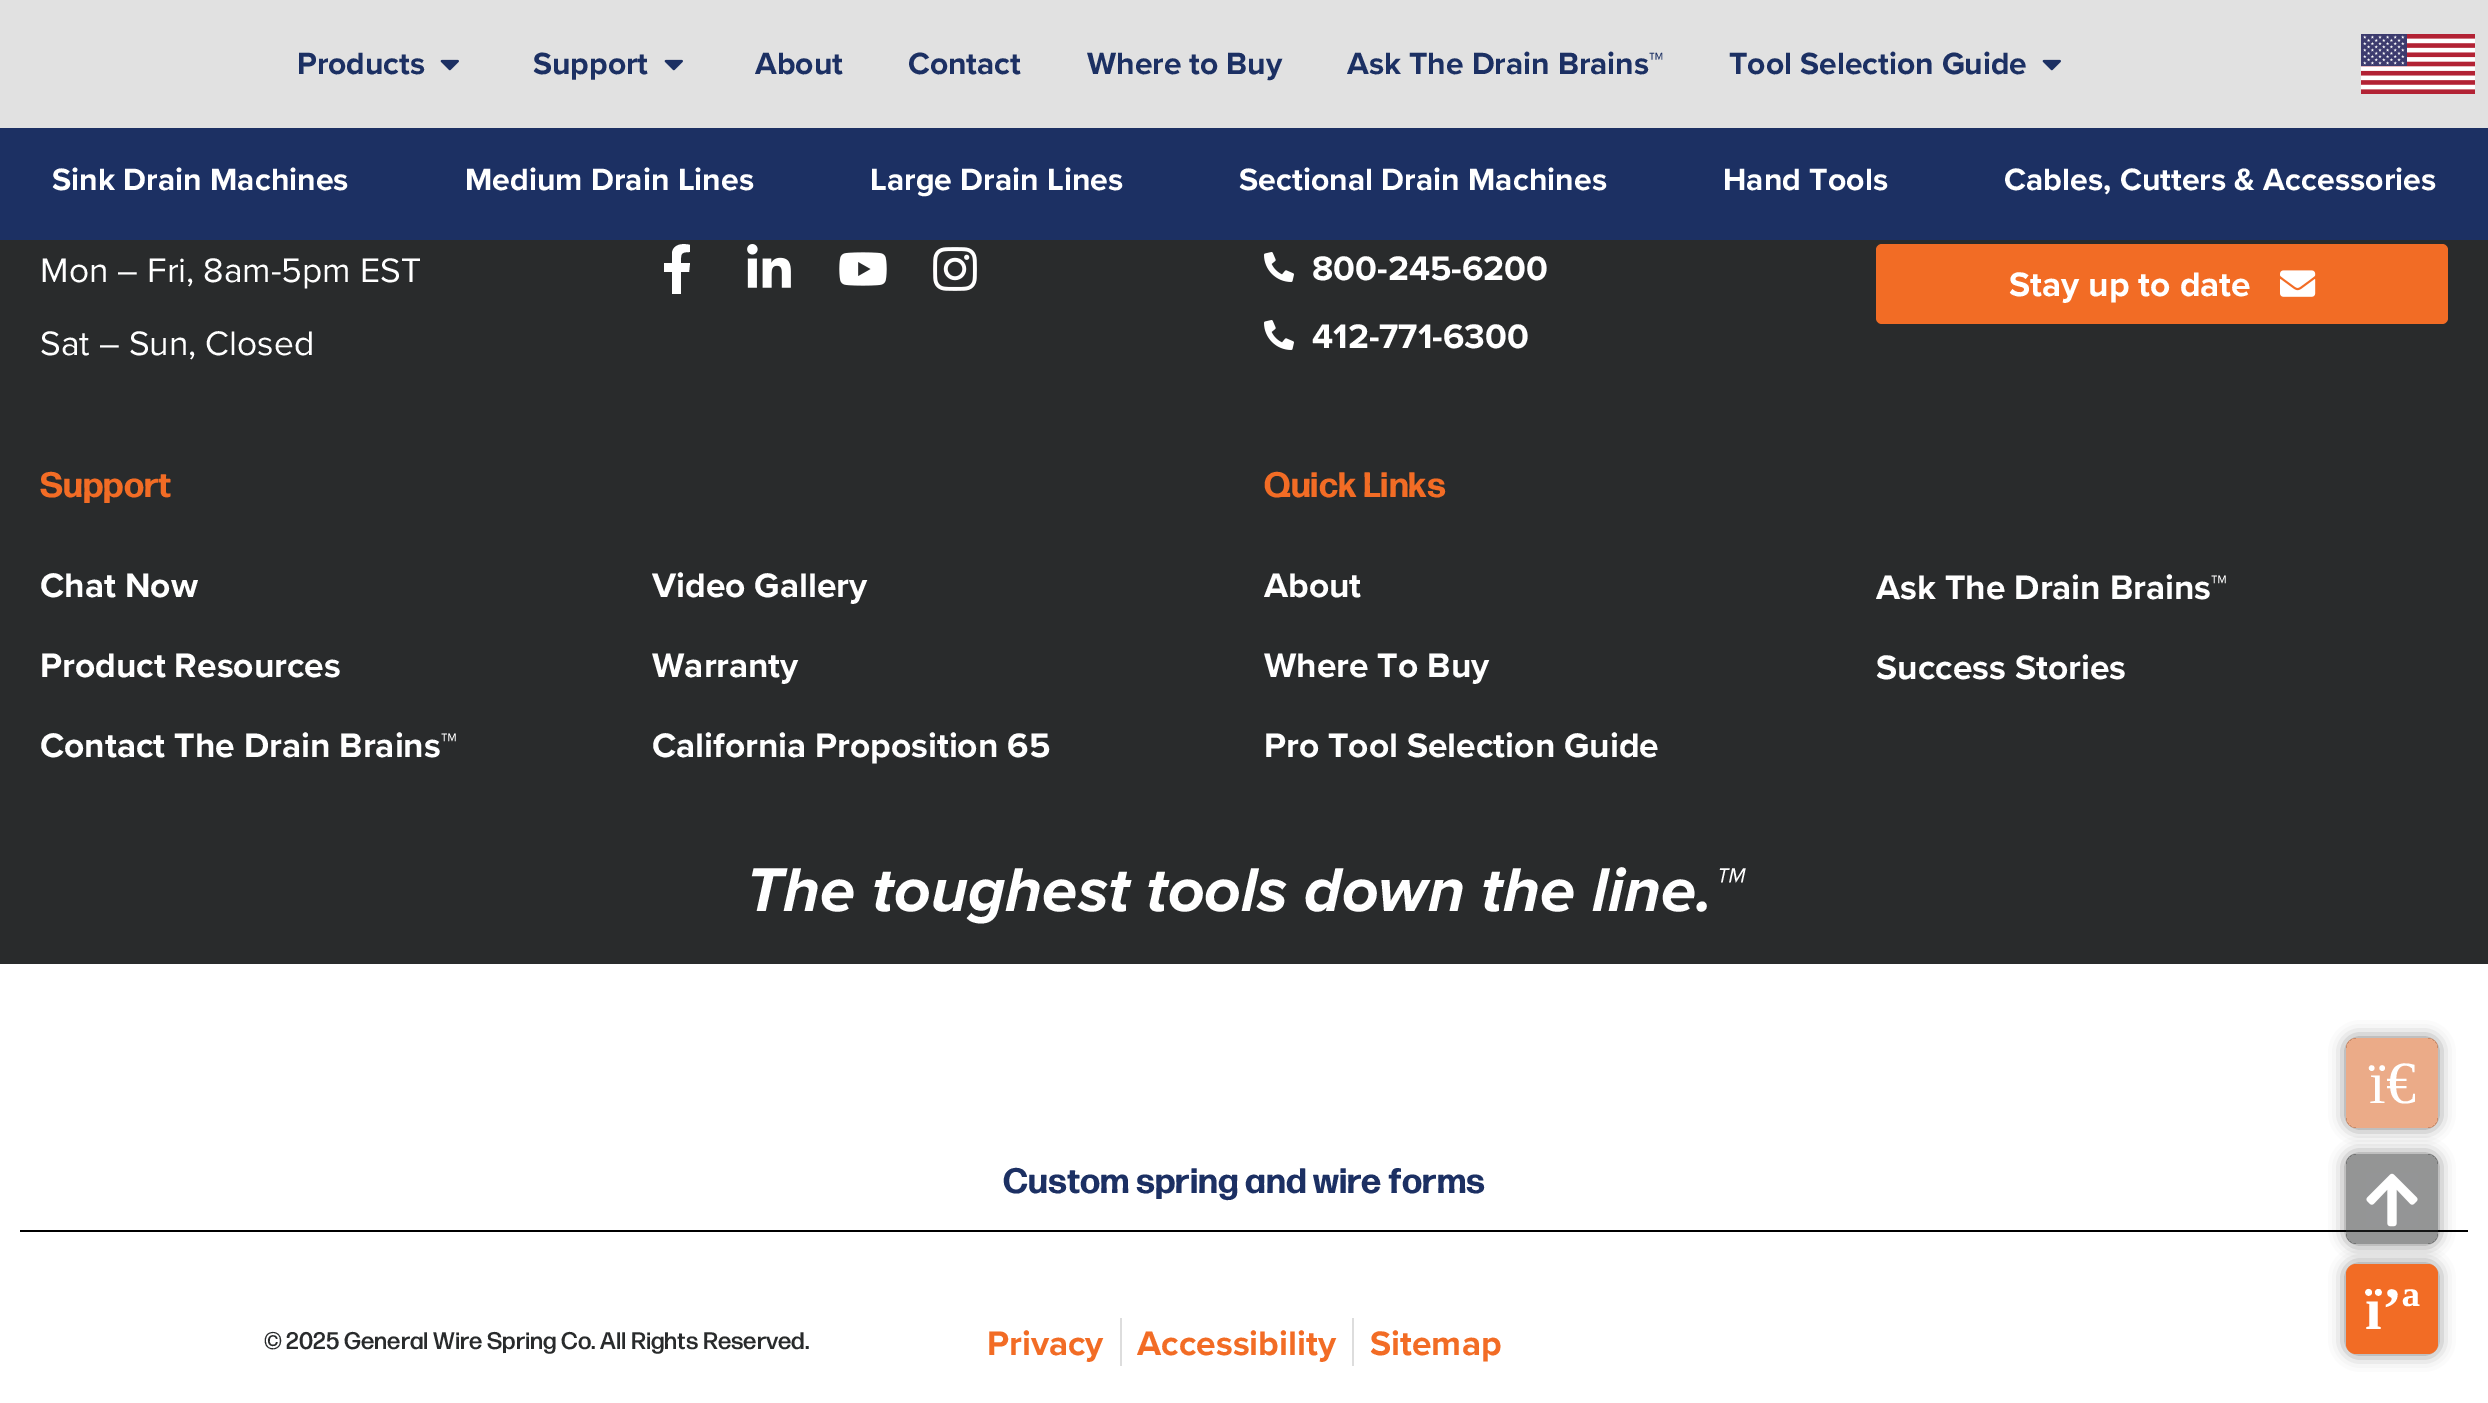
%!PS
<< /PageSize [2488 1403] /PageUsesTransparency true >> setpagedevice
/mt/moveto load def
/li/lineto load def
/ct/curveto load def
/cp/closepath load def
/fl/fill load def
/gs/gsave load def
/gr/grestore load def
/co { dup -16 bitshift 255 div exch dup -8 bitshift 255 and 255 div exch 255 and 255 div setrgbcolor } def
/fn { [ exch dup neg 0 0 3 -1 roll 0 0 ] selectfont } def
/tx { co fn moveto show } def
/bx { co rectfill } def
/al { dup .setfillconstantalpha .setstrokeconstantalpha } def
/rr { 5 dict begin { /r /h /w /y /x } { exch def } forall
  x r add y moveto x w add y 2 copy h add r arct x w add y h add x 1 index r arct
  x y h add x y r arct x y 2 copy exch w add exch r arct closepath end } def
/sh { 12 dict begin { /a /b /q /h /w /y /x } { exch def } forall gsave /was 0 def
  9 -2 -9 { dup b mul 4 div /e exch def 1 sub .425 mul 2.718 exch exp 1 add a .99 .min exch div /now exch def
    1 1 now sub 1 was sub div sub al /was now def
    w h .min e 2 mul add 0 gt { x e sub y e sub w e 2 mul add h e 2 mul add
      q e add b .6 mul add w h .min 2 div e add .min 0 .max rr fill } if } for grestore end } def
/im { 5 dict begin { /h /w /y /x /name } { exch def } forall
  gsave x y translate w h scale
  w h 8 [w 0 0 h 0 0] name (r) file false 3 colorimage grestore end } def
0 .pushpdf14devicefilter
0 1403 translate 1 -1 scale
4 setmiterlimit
0 0 2488 1403 16#FFFFFF bx
0 0 2488 128 16#E1E1E1 bx
(media/1.raw) 440 59 19 12 im
(media/1.raw) 664 59 19 12 im
(media/1.raw) 2042 59 19 12 im
(media/2.raw) 2361 34 114 60 im
gs
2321 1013 mt 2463 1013 li 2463 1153 li 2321 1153 li cp 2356 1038 mt 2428 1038 li 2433.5 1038 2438 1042.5 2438 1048 ct 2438 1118 li 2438 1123.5 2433.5 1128 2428 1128 ct 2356 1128 li 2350.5 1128 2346 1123.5 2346 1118 ct 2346 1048 li 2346 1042.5 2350.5 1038 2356 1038 ct cp eoclip newpath
16#000000 co
2346 1038 92 90 10 8 .5 sh
gr
0.49 al
16#D7530D co
2346 1038 92 90 10 rr fl
1 al
20 1230 2448 2 16#000000 bx
gs
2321 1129 mt 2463 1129 li 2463 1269 li 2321 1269 li cp 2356 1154 mt 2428 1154 li 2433.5 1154 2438 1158.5 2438 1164 ct 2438 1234 li 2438 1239.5 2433.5 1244 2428 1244 ct 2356 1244 li 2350.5 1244 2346 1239.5 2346 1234 ct 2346 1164 li 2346 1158.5 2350.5 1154 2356 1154 ct cp eoclip newpath
2346 1154 92 90 10 8 .5 sh
gr
0.5 al
16#292B2C co
2346 1154 92 90 10 rr fl
1 al
(media/3.raw) 2366 1173 52 54 im
16#000000 co
2346 1264 92 90 10 8 .5 sh
16#F26C25 co
2346 1264 92 90 10 rr fl
0 128 2488 112 16#1C3063 bx
0 240 2488 724 16#292B2C bx
16#FFFFFF co
689 272 mt 690 263 li 681 263 li 681 254 680 252 690 252 ct 690 245 li 683 243 673 244 672 253 ct 672 263 li 664 263 li 664 272 li 672 272 li 672 294 li 681 294 li 681 272 li cp fl
(media/4.raw) 747 244 44 44 im
(media/5.raw) 839 252 48 34 im
(media/6.raw) 933 247 44 44 im
(media/7.raw) 1264 252 30 30 im
(media/7.raw) 1264 320 30 30 im
16#F26C25 co
1876 244 572 80 6 rr fl
(media/8.raw) 2280 270 36 27 im
1120 1318 2 48 16#DDDDDD bx
1352 1318 2 48 16#DDDDDD bx
(Products) 297 74 /ProximaNova-Bold 31.75 16#1C3063 tx
(Support) 533 74 /ProximaNova-Bold 31.75 16#1C3063 tx
(About) 755 74 /ProximaNova-Bold 31.75 16#1C3063 tx
(Contact) 908 74 /ProximaNova-Bold 31.75 16#1C3063 tx
(Where to Buy) 1087 74 /ProximaNova-Bold 31.75 16#1C3063 tx
(Ask The Drain Brains™) 1347 74 /ProximaNova-Bold 31.75 16#1C3063 tx
(Tool Selection Guide) 1729 74 /ProximaNova-Bold 31.75 16#1C3063 tx
(ï€) 2369 1103 /LiberationSerif-Regular 60 16#FFFFFF tx
(ï’ª) 2365 1329 /LiberationSerif-Bold 60 16#FFFFFF tx
(Sink Drain Machines) 52 190 /ProximaNova-Bold 32 16#FFFFFF tx
(Medium Drain Lines) 465 190 /ProximaNova-Bold 32 16#FFFFFF tx
(Large Drain Lines) 870 190 /ProximaNova-Bold 32 16#FFFFFF tx
(Sectional Drain Machines) 1239 190 /ProximaNova-Bold 32 16#FFFFFF tx
(Hand Tools) 1723 190 /ProximaNova-Bold 32 16#FFFFFF tx
(Cables, Cutters & Accessories) 2004 190 /ProximaNova-Bold 32 16#FFFFFF tx
(Mon – Fri, 8am-5pm EST) 40 282 /ProximaNova-Regular 35.25 16#FFFFFF tx
(Sat – Sun, Closed) 40 355 /ProximaNova-Regular 35.25 16#FFFFFF tx
(800-245-6200) 1312 280 /ProximaNova-Bold 35.25 16#FFFFFF tx
(412-771-6300) 1312 348 /ProximaNova-Bold 35.25 16#FFFFFF tx
(Stay up to date) 2009 296 /ProximaNova-Bold 35.25 16#FFFFFF tx
(Support) 40 497 /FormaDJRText-Bold 35.25 16#F26C25 tx
(Chat Now) 40 597 /ProximaNova-Bold 35.25 16#FFFFFF tx
(Product Resources) 40 677 /ProximaNova-Bold 35.25 16#FFFFFF tx
(Contact The Drain Brains™) 40 757 /ProximaNova-Bold 35.25 16#FFFFFF tx
(Video Gallery) 652 597 /ProximaNova-Bold 35.25 16#FFFFFF tx
(Warranty) 652 677 /ProximaNova-Bold 35.25 16#FFFFFF tx
(California Proposition 65) 652 757 /ProximaNova-Bold 35.25 16#FFFFFF tx
(Quick Links) 1264 497 /FormaDJRText-Bold 35.25 16#F26C25 tx
(About) 1264 597 /ProximaNova-Bold 35.25 16#FFFFFF tx
(Where To Buy) 1264 677 /ProximaNova-Bold 35.25 16#FFFFFF tx
(Pro Tool Selection Guide) 1264 757 /ProximaNova-Bold 35.25 16#FFFFFF tx
(Ask The Drain Brains™) 1876 599 /ProximaNova-Bold 35.25 16#FFFFFF tx
(Success Stories) 1876 679 /ProximaNova-Bold 35.25 16#FFFFFF tx
(The toughest tools down the line.™) 746 911 /ProximaNova-BoldItalic 64 16#FFFFFF tx
(Custom spring and wire forms) 1003 1193 /FormaDJRText-Bold 35.25 16#1C3063 tx
(© 2025 General Wire Spring Co. All Rights Reserved.) 264 1349 /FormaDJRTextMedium-Medium 24 16#292B2C tx
(Privacy) 987 1355 /ProximaNova-Bold 35.25 16#F26C25 tx
(Accessibility) 1137 1355 /ProximaNova-Bold 35.25 16#F26C25 tx
(Sitemap) 1370 1355 /ProximaNova-Bold 35.25 16#F26C25 tx
.poppdf14devicefilter showpage
